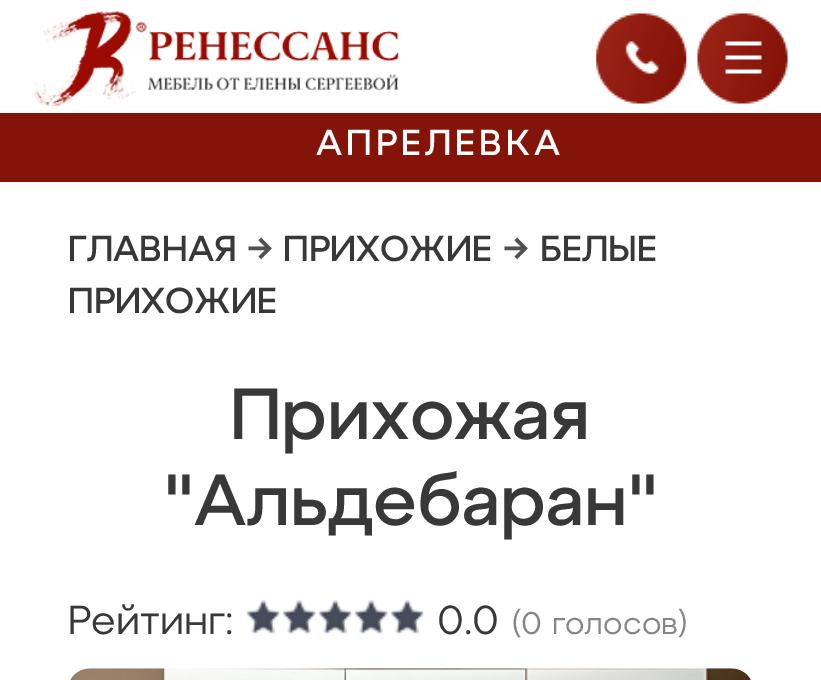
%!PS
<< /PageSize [821 680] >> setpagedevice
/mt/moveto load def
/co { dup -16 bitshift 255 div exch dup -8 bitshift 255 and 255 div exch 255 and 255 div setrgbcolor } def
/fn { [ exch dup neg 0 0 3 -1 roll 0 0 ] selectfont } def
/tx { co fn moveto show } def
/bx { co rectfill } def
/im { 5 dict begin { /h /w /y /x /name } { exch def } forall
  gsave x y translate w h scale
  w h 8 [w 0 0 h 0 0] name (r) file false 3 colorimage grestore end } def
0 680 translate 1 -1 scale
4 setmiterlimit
0 0 821 680 16#FFFFFF bx
(media/1.raw) 34 11 365 95 im
(media/2.raw) 596 13 91 91 im
(media/3.raw) 697 13 91 91 im
0 113 821 69 16#841308 bx
(media/4.raw) 246 600 178 35 im
(media/5.raw) 70 668 681 12 im
/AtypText-Medium 36 fn
16#FFFFFF co
316 155 mt 4 0 (АПРЕЛЕВКА) ashow
(ГЛАВНАЯ) 68 261 /AtypText-Medium 36 16#383838 tx
(→) 247 261 /AtypText-Medium 36 16#505050 tx
(ПРИХОЖИЕ) 283 261 /AtypText-Medium 36 16#383838 tx
(→) 503 261 /AtypText-Medium 36 16#505050 tx
(БЕЛЫЕ) 540 261 /AtypText-Medium 36 16#383838 tx
(ПРИХОЖИЕ) 68 313 /AtypText-Medium 36 16#383838 tx
(Прихожая) 230 439 /AtypText-Medium 72 16#383838 tx
("Альдебаран") 164 525 /AtypText-Medium 72 16#383838 tx
(Рейтинг:) 68 634 /AtypText-Regular 40.5 16#383838 tx
(0.0) 437 634 /AtypText-Regular 40.5 16#383838 tx
(\(0 голосов\)) 512 634 /AtypText-Regular 31.5 16#858585 tx
showpage
